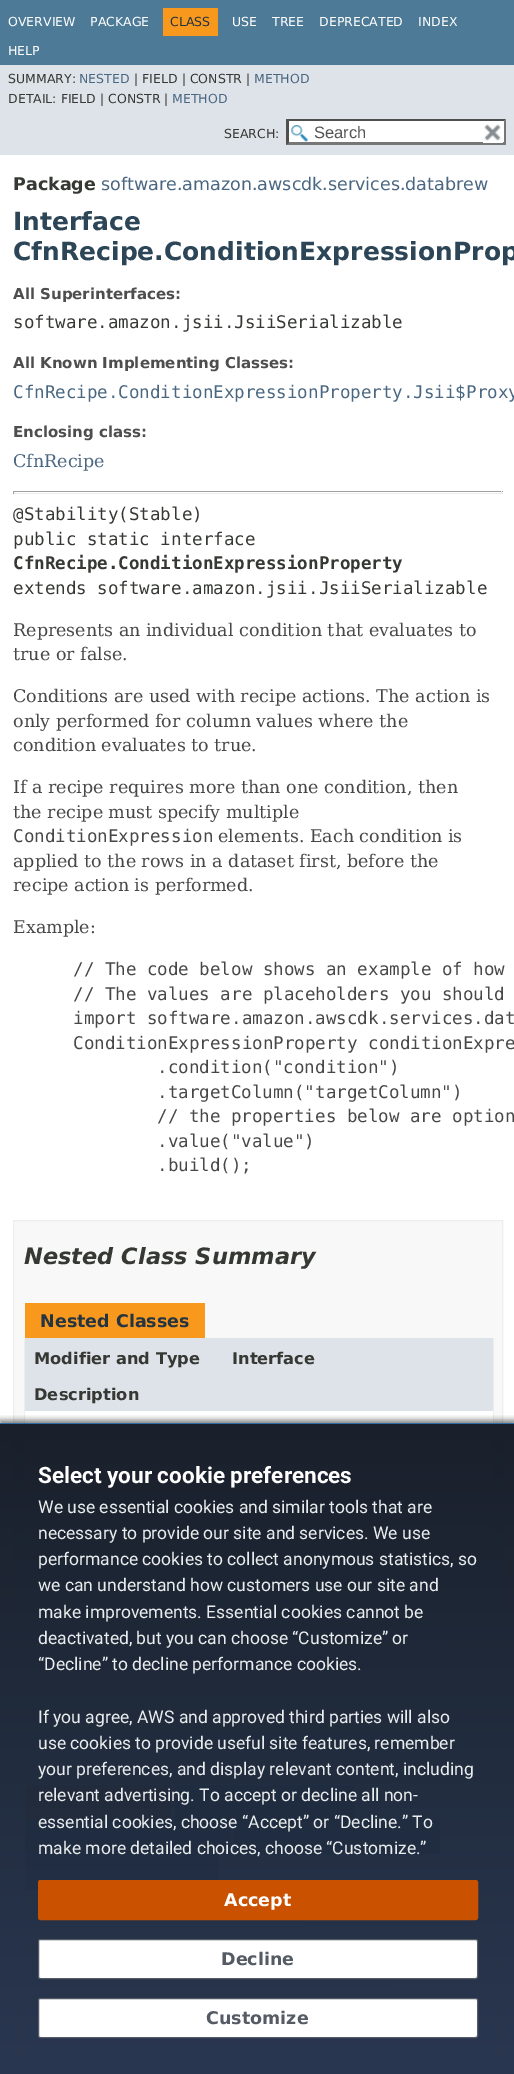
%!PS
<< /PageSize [514 2074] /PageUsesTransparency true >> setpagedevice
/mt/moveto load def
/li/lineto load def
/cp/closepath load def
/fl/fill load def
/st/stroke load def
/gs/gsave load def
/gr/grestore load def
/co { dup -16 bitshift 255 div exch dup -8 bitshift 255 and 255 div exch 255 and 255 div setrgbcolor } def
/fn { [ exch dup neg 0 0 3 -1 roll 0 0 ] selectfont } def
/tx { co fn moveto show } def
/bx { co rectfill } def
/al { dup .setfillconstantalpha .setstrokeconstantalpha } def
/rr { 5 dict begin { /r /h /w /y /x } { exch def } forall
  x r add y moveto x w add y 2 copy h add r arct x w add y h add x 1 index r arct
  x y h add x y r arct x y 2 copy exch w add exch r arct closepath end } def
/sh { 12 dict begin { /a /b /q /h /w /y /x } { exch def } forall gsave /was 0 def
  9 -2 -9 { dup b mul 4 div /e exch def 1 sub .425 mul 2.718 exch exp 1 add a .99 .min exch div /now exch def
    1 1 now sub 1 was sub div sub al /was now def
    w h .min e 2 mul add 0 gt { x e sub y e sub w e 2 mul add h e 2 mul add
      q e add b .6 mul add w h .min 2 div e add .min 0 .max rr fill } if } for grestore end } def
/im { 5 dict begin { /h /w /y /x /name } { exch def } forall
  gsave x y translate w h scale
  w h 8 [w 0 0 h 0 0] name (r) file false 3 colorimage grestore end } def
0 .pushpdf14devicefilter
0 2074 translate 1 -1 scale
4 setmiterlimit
0 0 514 2074 16#FFFFFF bx
0 0 514 65 16#4D7A97 bx
163 8 55 28 16#F8981D bx
0 65 514 90 16#DEE3E9 bx
286 119 220 26 16#FFFFFF bx
(media/1.raw) 291 125 17 17 im
16#4F4F4F co
286 119 mt 506 119 li 504 121 li 289 121 li cp fl
16#767676 co
506 119 mt 506 145 li 504 142.5 li 504 121 li cp fl
506 145 mt 286 145 li 289 142 li 504 142 li cp fl
16#4F4F4F co
286 145 mt 286 119 li 289 121 li 289 142.5 li cp fl
483 142 20 1 16#FFFFFF bx
(media/2.raw) 484 124 17 17 im
13 491 490 1 16#9F9F9F bx
501 491 1 3 16#EEEEEE bx
13 493 490 1 16#EEEEEE bx
13 491 1 3 16#9F9F9F bx
16#F8F8F8 co
13.5 1220.5 mt 502.5 1220.5 li 502.5 1682.5 li 13.5 1682.5 li cp gs fl gr
16#EDEDED co
st
25 1303 180 35 16#F8981D bx
493 1338 1 337 16#EEEEEE bx
24 1674 470 1 16#EEEEEE bx
24 1338 1 337 16#EEEEEE bx
25 1338 468 36 16#DEE3E9 bx
25 1374 468 37 16#DEE3E9 bx
25 1411 468 63 16#FFFFFF bx
25 1474 468 69 16#FFFFFF bx
25 1543 468 62 16#EEEEEF bx
25 1605 468 69 16#EEEEEF bx
16#F8F8F8 co
13.5 1701.5 mt 502.5 1701.5 li 502.5 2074.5 li 13.5 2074.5 li cp gs fl gr
16#EDEDED co
st
25 1785 146 35 16#F8981D bx
175 1785 179 35 16#4D7A97 bx
25 1820 205 35 16#4D7A97 bx
234 1820 206 35 16#4D7A97 bx
25 1855 194 35 16#4D7A97 bx
493 1890 1 184 16#EEEEEE bx
24 1890 1 184 16#EEEEEE bx
25 1890 468 36 16#DEE3E9 bx
25 1926 468 37 16#DEE3E9 bx
25 1963 468 62 16#FFFFFF bx
25 2025 468 36 16#FFFFFF bx
25 2061 468 13 16#EEEEEF bx
gs
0 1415 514 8 rectclip
16#000000 co
0 1420 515 653 0 3 .5 sh
gr
0.98 al
gs 0 1424 mt 514 1424 li 514 2074 li 0 2074 li cp clip newpath
<< /ShadingType 2 /ColorSpace /DeviceRGB /Coords [257 1424 258 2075] /Extend [true true] /Function << /FunctionType 2 /Domain [0 1] /C0 [.082 .11 .153] /C1 [.149 .2 .302] /N 1 >> >> shfill gr
1 al
0 1423 514 1 16#306DA3 bx
16#C95100 co
38.5 1880.5 439 39 2 rr gs fl gr
st
16#FFFFFF co
38.5 1939.5 439 39 2 rr gs fl gr
16#545B64 co
st
16#FFFFFF co
38.5 1998.5 439 39 2 rr gs fl gr
16#545B64 co
st
(OVERVIEW) 8 26 /DejaVuSans-Regular 12.5 16#FFFFFF tx
(PACKAGE) 90 26 /DejaVuSans-Regular 12.5 16#FFFFFF tx
(CLASS) 170 26 /DejaVuSans-Regular 12.5 16#253441 tx
(USE) 232 26 /DejaVuSans-Regular 12.5 16#FFFFFF tx
(TREE) 272 26 /DejaVuSans-Regular 12.5 16#FFFFFF tx
(DEPRECATED) 319 26 /DejaVuSans-Regular 12.5 16#FFFFFF tx
(INDEX) 418 26 /DejaVuSans-Regular 12.5 16#FFFFFF tx
(HELP) 8 55 /DejaVuSans-Regular 12.5 16#FFFFFF tx
(SUMMARY:) 8 83 /DejaVuSans-Regular 12.5 16#353833 tx
(NESTED) 79 83 /DejaVuSans-Regular 12.5 16#4A6782 tx
(| FIELD | CONSTR |) 134 83 /DejaVuSans-Regular 12.5 16#353833 tx
(METHOD) 254 83 /DejaVuSans-Regular 12.5 16#4A6782 tx
(DETAIL: FIELD | CONSTR |) 8 103 /DejaVuSans-Regular 12.5 16#353833 tx
(METHOD) 172 103 /DejaVuSans-Regular 12.5 16#4A6782 tx
(SEARCH:) 224 138 /DejaVuSans-Regular 12.5 16#353833 tx
(Search) 314 138 /LiberationSans-Regular 16.5 16#545454 tx
(Package) 13 190 /DejaVuSans-Bold 17.5 16#353833 tx
(software.amazon.awscdk.services.databrew) 101 190 /DejaVuSans-Regular 17.5 16#4A6782 tx
(Interface) 13 230 /DejaVuSans-Bold 25 16#2C4557 tx
(CfnRecipe.ConditionExpressionProp) 13 260 /DejaVuSans-Bold 25 16#2C4557 tx
(All Superinterfaces:) 13 299 /DejaVuSans-Bold 15 16#4E4E4E tx
(software.amazon.jsii.JsiiSerializable) 13 328 /DejaVuSansMono-Regular 17.5 16#353833 tx
(All Known Implementing Classes:) 13 368 /DejaVuSans-Bold 15 16#4E4E4E tx
(CfnRecipe.ConditionExpressionProperty.Jsii$Proxy) 13 398 /DejaVuSansMono-Regular 17.5 16#4A6782 tx
(Enclosing class:) 13 437 /DejaVuSans-Bold 15 16#4E4E4E tx
(CfnRecipe) 13 467 /DejaVuSerif-Regular 17.5 16#4A6782 tx
(@Stability\(Stable\)) 13 520 /DejaVuSansMono-Regular 17.5 16#353833 tx
(public static interface) 13 545 /DejaVuSansMono-Regular 17.5 16#353833 tx
(CfnRecipe.ConditionExpressionProperty) 13 569 /DejaVuSansMono-Bold 17.5 16#353833 tx
(extends software.amazon.jsii.JsiiSerializable) 13 594 /DejaVuSansMono-Regular 17.5 16#353833 tx
(Represents an individual condition that evaluates to) 13 636 /DejaVuSerif-Regular 17.5 16#474747 tx
(true or false.) 13 660 /DejaVuSerif-Regular 17.5 16#474747 tx
(Conditions are used with recipe actions. The action is) 13 702 /DejaVuSerif-Regular 17.5 16#474747 tx
(only performed for column values where the) 13 727 /DejaVuSerif-Regular 17.5 16#474747 tx
(condition evaluates to true.) 13 751 /DejaVuSerif-Regular 17.5 16#474747 tx
(If a recipe requires more than one condition, then) 13 793 /DejaVuSerif-Regular 17.5 16#474747 tx
(the recipe must specify multiple) 13 818 /DejaVuSerif-Regular 17.5 16#474747 tx
(ConditionExpression) 13 842 /DejaVuSansMono-Regular 17.5 16#474747 tx
(elements. Each condition is) 218 842 /DejaVuSerif-Regular 17.5 16#474747 tx
(applied to the rows in a dataset first, before the) 13 867 /DejaVuSerif-Regular 17.5 16#474747 tx
(recipe action is performed.) 13 891 /DejaVuSerif-Regular 17.5 16#474747 tx
(Example:) 13 933 /DejaVuSerif-Regular 17.5 16#474747 tx
(// The code below shows an example of how) 73 975 /DejaVuSansMono-Regular 17.5 16#474747 tx
(// The values are placeholders you should) 73 1000 /DejaVuSansMono-Regular 17.5 16#474747 tx
(import software.amazon.awscdk.services.dat) 73 1024 /DejaVuSansMono-Regular 17.5 16#474747 tx
(ConditionExpressionProperty conditionExpre) 73 1049 /DejaVuSansMono-Regular 17.5 16#474747 tx
(.condition\("condition"\)) 157 1073 /DejaVuSansMono-Regular 17.5 16#474747 tx
(.targetColumn\("targetColumn"\)) 157 1098 /DejaVuSansMono-Regular 17.5 16#474747 tx
(// the properties below are option) 157 1122 /DejaVuSansMono-Regular 17.5 16#474747 tx
(.value\("value"\)) 157 1147 /DejaVuSansMono-Regular 17.5 16#474747 tx
(.build\(\);) 157 1171 /DejaVuSansMono-Regular 17.5 16#474747 tx
(Nested Class Summary) 24 1264 /DejaVuSans-BoldItalic 22.5 16#353833 tx
(Nested Classes) 40 1327 /DejaVuSans-Bold 17.5 16#253441 tx
(Modifier and Type) 34 1364 /DejaVuSans-Bold 16.25 16#353833 tx
(Interface) 232 1364 /DejaVuSans-Bold 16.25 16#353833 tx
(Description) 34 1400 /DejaVuSans-Bold 16.25 16#353833 tx
(Select your cookie preferences) 38 1483 /Roboto-Bold 22.5 16#FFFFFF tx
(We use essential cookies and similar tools that are) 38 1513 /Roboto-Regular 17.5 16#EAEDED tx
(necessary to provide our site and services. We use) 38 1539 /Roboto-Regular 17.5 16#EAEDED tx
(performance cookies to collect anonymous statistics, so) 38 1565 /Roboto-Regular 17.5 16#EAEDED tx
(we can understand how customers use our site and) 38 1591 /Roboto-Regular 17.5 16#EAEDED tx
(make improvements. Essential cookies cannot be) 38 1618 /Roboto-Regular 17.5 16#EAEDED tx
(deactivated, but you can choose “Customize” or) 38 1644 /Roboto-Regular 17.5 16#EAEDED tx
(“Decline” to decline performance cookies.) 38 1670 /Roboto-Regular 17.5 16#EAEDED tx
(If you agree, AWS and approved third parties will also) 38 1723 /Roboto-Regular 17.5 16#EAEDED tx
(use cookies to provide useful site features, remember) 38 1749 /Roboto-Regular 17.5 16#EAEDED tx
(your preferences, and display relevant content, including) 38 1775 /Roboto-Regular 17.5 16#EAEDED tx
(relevant advertising. To accept or decline all non-) 38 1801 /Roboto-Regular 17.5 16#EAEDED tx
(essential cookies, choose “Accept” or “Decline.” To) 38 1828 /Roboto-Regular 17.5 16#EAEDED tx
(make more detailed choices, choose “Customize.”) 38 1854 /Roboto-Regular 17.5 16#EAEDED tx
(Accept) 224 1906 /DejaVuSans-Bold 17.5 16#FFFFFF tx
(Decline) 221 1965 /DejaVuSans-Bold 17.5 16#545B64 tx
(Customize) 206 2024 /DejaVuSans-Bold 17.5 16#545B64 tx
.poppdf14devicefilter showpage
